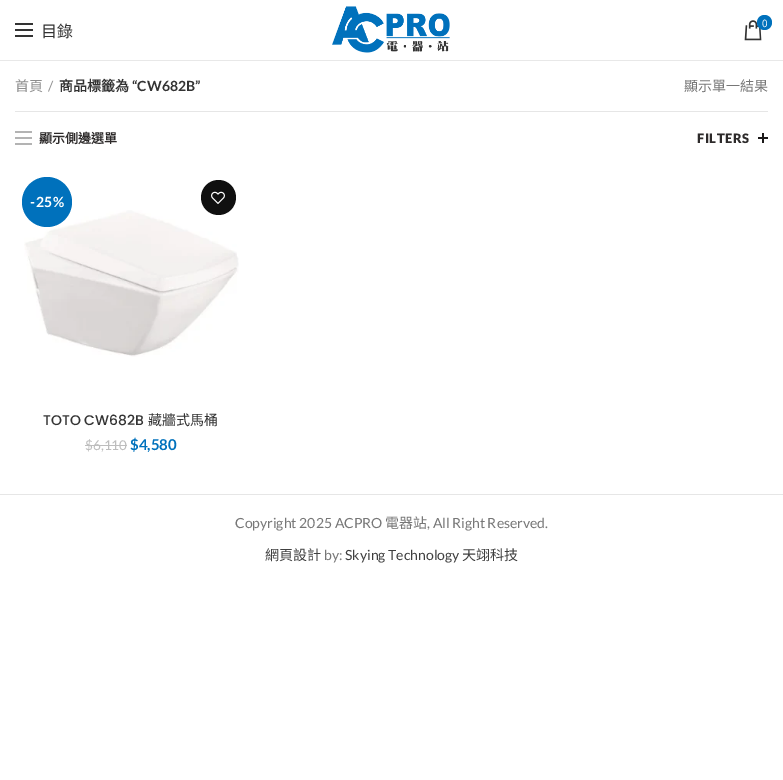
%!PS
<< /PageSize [783 780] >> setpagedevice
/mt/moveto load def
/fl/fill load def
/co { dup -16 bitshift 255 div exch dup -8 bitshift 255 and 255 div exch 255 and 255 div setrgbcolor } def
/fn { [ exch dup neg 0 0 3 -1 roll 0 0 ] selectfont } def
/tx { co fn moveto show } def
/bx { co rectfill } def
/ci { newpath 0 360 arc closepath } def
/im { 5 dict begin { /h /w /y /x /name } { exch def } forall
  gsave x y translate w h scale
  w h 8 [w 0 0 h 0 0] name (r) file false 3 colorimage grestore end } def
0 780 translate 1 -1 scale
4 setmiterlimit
0 0 783 780 16#FFFFFF bx
0 60 783 1 16#E8E8E8 bx
15 29 18 2 16#333333 bx
15 23 18 2 16#333333 bx
15 35 18 2 16#333333 bx
(media/1.raw) 332 6 118 47 im
(media/2.raw) 744 20 18 21 im
16#0071BC co
764.5 22.5 7.5 ci fl
15 111 753 1 16#E6E6E6 bx
15 137 17 2 16#B3B3B3 bx
15 131 17 2 16#B3B3B3 bx
15 143 17 2 16#B3B3B3 bx
762 133 2 10 16#1B1919 bx
758 137 10 2 16#1B1919 bx
(media/3.raw) 24 210 215 147 im
16#0071BC co
47 202 25 ci fl
16#101010 co
218.5 197.5 17.5 ci fl
(media/4.raw) 211 191 14 13 im
85 445 42 1 16#BDBDBD bx
0 494 783 1 16#E6E6E6 bx
(目錄) 41 37 /NotoSansCJKHK-Regular 16 16#333333 tx
(0) 762 27 /NotoSansHK-Regular 10 16#FFFFFF tx
(首頁) 15 91 /NotoSansCJKHK-Regular 14 16#8E8E8E tx
(/) 48 91 /Lato-Regular 14 16#8E8E8E tx
(商品標籤為) 59 91 /NotoSansCJKHK-Bold 14 16#333333 tx
(“CW682B”) 132 91 /Lato-Bold 14 16#333333 tx
(顯示單一結果) 684 91 /NotoSansCJKHK-Regular 14 16#777777 tx
(顯示側邊選單) 39 143 /NotoSansCJKHK-Bold 13 16#2D2A2A tx
/Lato-Black 13 fn
697 143 mt .5 0 (FILTERS) ashow
/Lato-Bold 14 fn
16#FFFFFF co
30 207 mt .5 0 (-25%) ashow
(TOTO CW682B) 43 425 /Poppins-Medium 14 16#333333 tx
(藏牆式馬桶) 148 425 /NotoSansCJKHK-Regular 14 16#333333 tx
($6,110) 85 450 /Lato-Regular 13.5 16#BDBDBD tx
($4,580) 130 450 /Lato-Bold 15 16#0071BC tx
(Copyright 2025 ACPRO) 235 528 /Lato-Regular 14 16#777777 tx
(電器站) 385 528 /NotoSansCJKHK-Regular 14 16#777777 tx
(, All Right Reserved.) 427 528 /Lato-Regular 14 16#777777 tx
(網頁設計) 265 560 /NotoSansCJKHK-Regular 14 16#3F3F3F tx
(by:) 324 560 /Lato-Regular 14 16#777777 tx
(Skying Technology) 345 560 /Lato-Regular 14 16#3F3F3F tx
(天翊科技) 462 560 /NotoSansCJKHK-Regular 14 16#3F3F3F tx
showpage
